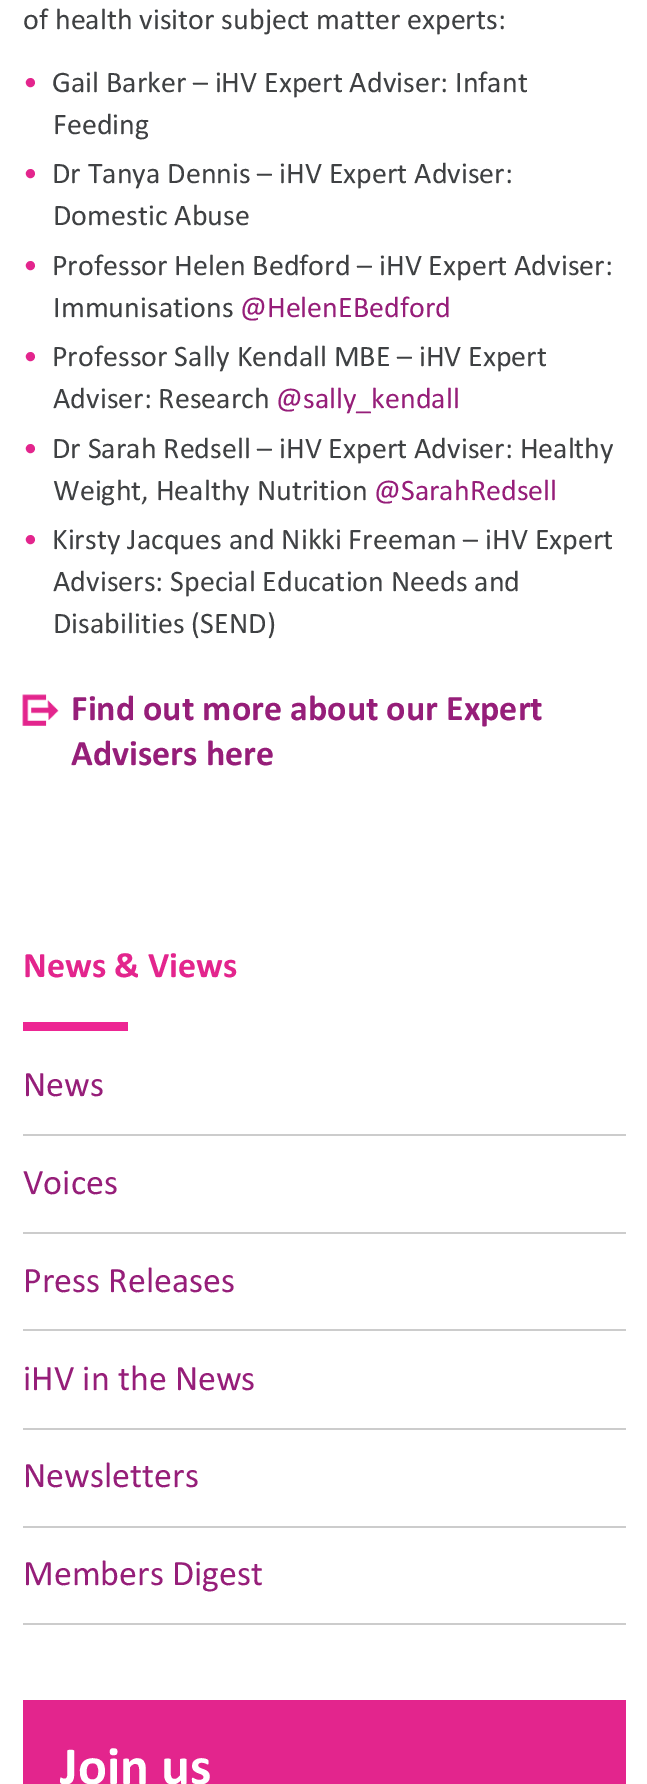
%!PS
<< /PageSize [647 1784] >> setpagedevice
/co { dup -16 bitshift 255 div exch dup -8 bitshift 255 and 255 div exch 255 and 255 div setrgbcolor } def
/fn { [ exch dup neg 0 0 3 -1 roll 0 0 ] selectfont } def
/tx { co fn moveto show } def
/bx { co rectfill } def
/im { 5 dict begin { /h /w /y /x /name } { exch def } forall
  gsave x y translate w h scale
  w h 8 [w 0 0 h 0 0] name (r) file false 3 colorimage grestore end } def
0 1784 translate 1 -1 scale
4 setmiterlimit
0 0 647 1784 16#FFFFFF bx
(media/1.raw) 22 694 37 32 im
23 1022 105 9 16#ED2693 bx
23 1134 603 2 16#CCCCCC bx
23 1232 603 2 16#CCCCCC bx
23 1329 603 2 16#CCCCCC bx
23 1428 603 2 16#CCCCCC bx
23 1526 603 2 16#CCCCCC bx
23 1623 603 2 16#CCCCCC bx
23 1700 603 84 16#E3258D bx
(of health visitor subject matter experts:) 23 29 /Calibri-Regular 30 16#3F4143 tx
(•) 23 92 /Calibri-Regular 30 16#E3258D tx
(Gail Barker – iHV Expert Adviser: Infant) 52 92 /Calibri-Regular 30 16#3F4143 tx
(Feeding) 53 134 /Calibri-Regular 30 16#3F4143 tx
(•) 23 183 /Calibri-Regular 30 16#E3258D tx
(Dr Tanya Dennis – iHV Expert Adviser:) 52 183 /Calibri-Regular 30 16#3F4143 tx
(Domestic Abuse) 53 225 /Calibri-Regular 30 16#3F4143 tx
(•) 23 275 /Calibri-Regular 30 16#E3258D tx
(Professor Helen Bedford – iHV Expert Adviser:) 52 275 /Calibri-Regular 30 16#3F4143 tx
(Immunisations) 53 317 /Calibri-Regular 30 16#3F4143 tx
(@HelenEBedford) 240 317 /Calibri-Regular 30 16#961E79 tx
(•) 23 366 /Calibri-Regular 30 16#E3258D tx
(Professor Sally Kendall MBE – iHV Expert) 52 366 /Calibri-Regular 30 16#3F4143 tx
(Adviser: Research) 53 408 /Calibri-Regular 30 16#3F4143 tx
(@sally_kendall) 276 408 /Calibri-Regular 30 16#961E79 tx
(•) 23 458 /Calibri-Regular 30 16#E3258D tx
(Dr Sarah Redsell – iHV Expert Adviser: Healthy) 52 458 /Calibri-Regular 30 16#3F4143 tx
(Weight, Healthy Nutrition) 53 500 /Calibri-Regular 30 16#3F4143 tx
(@SarahRedsell) 374 500 /Calibri-Regular 30 16#961E79 tx
(•) 23 549 /Calibri-Regular 30 16#E3258D tx
(Kirsty Jacques and Nikki Freeman – iHV Expert) 52 549 /Calibri-Regular 30 16#3F4143 tx
(Advisers: Special Education Needs and) 53 591 /Calibri-Regular 30 16#3F4143 tx
(Disabilities \(SEND\)) 53 633 /Calibri-Regular 30 16#3F4143 tx
(Find out more about our Expert) 71 720 /Calibri-Bold 36 16#961E79 tx
(Advisers here) 71 765 /Calibri-Bold 36 16#961E79 tx
(News & Views) 23 977 /Calibri-Bold 36 16#E3258D tx
(News) 23 1096 /Calibri-Regular 36 16#961E79 tx
(Voices) 23 1194 /Calibri-Regular 36 16#961E79 tx
(Press Releases) 23 1292 /Calibri-Regular 36 16#961E79 tx
(iHV in the News) 23 1390 /Calibri-Regular 36 16#961E79 tx
(Newsletters) 23 1487 /Calibri-Regular 36 16#961E79 tx
(Members Digest) 23 1585 /Calibri-Regular 36 16#961E79 tx
(Join us) 60 1784 /Calibri-Bold 54 16#FFFFFF tx
showpage
